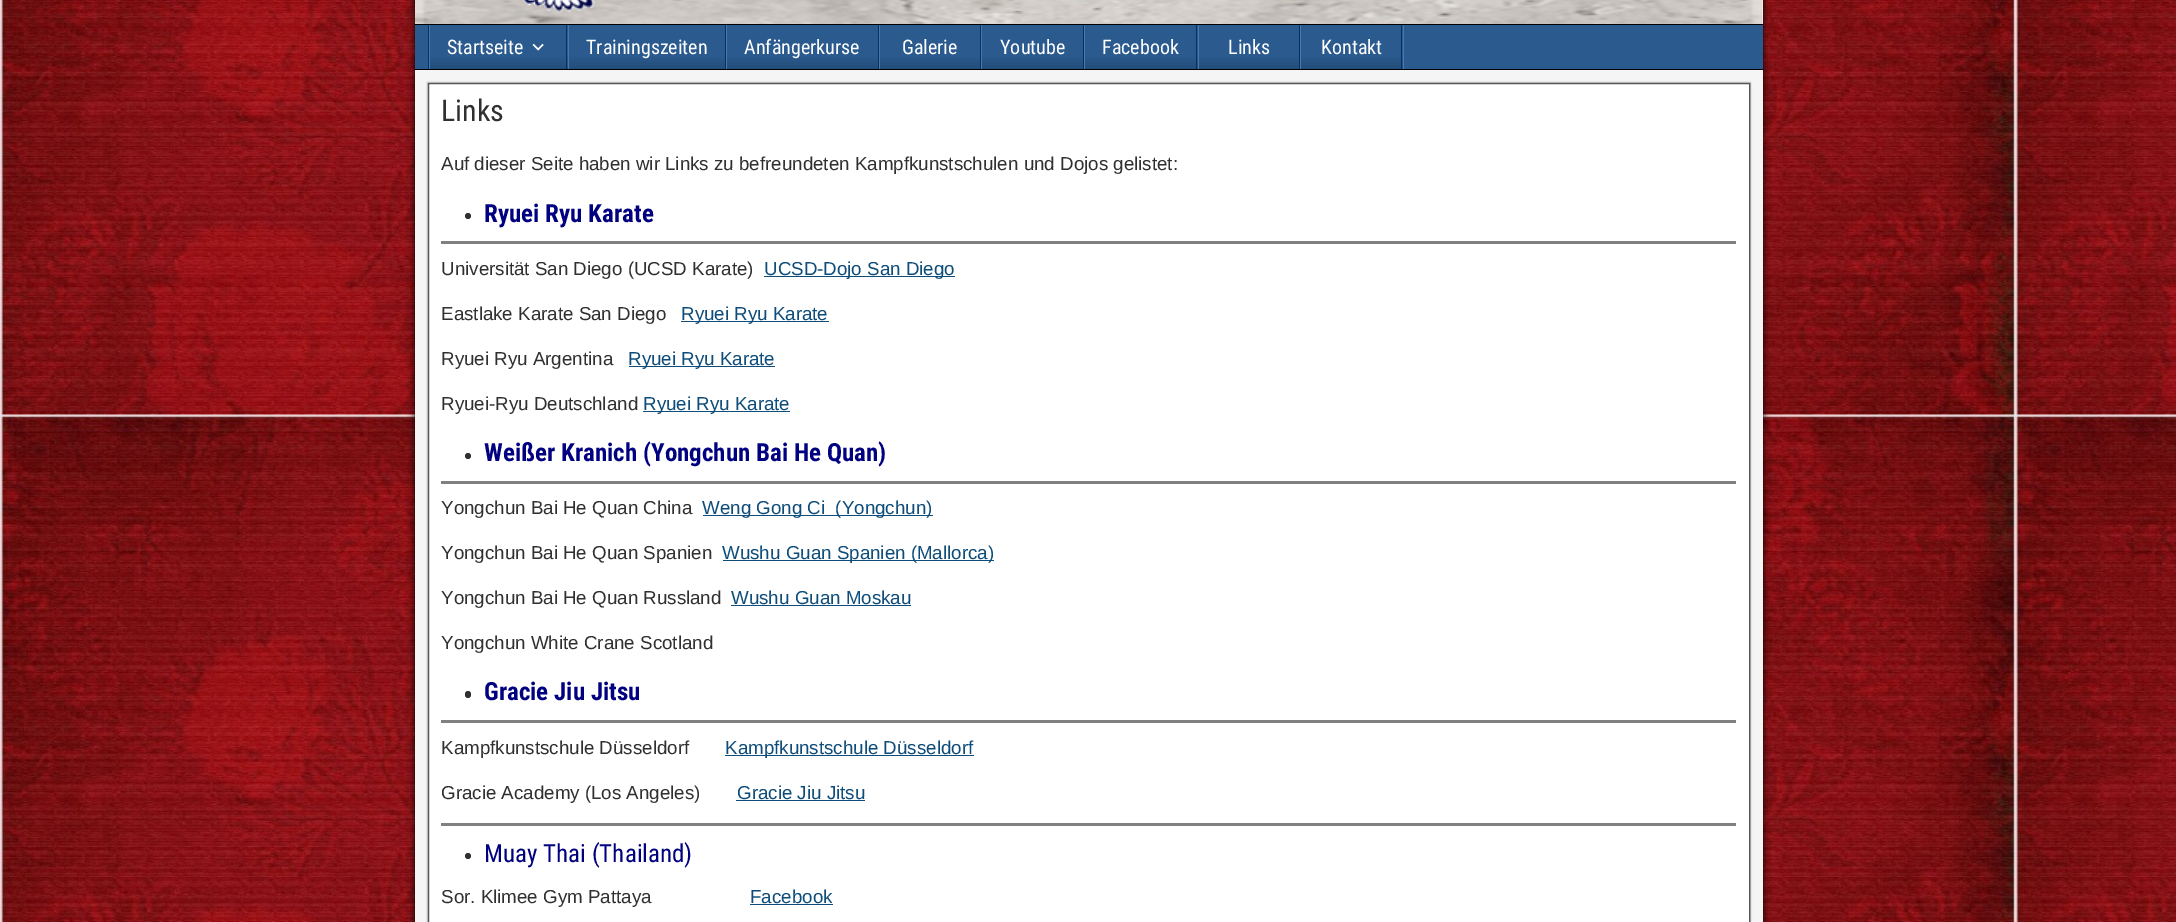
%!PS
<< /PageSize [2176 922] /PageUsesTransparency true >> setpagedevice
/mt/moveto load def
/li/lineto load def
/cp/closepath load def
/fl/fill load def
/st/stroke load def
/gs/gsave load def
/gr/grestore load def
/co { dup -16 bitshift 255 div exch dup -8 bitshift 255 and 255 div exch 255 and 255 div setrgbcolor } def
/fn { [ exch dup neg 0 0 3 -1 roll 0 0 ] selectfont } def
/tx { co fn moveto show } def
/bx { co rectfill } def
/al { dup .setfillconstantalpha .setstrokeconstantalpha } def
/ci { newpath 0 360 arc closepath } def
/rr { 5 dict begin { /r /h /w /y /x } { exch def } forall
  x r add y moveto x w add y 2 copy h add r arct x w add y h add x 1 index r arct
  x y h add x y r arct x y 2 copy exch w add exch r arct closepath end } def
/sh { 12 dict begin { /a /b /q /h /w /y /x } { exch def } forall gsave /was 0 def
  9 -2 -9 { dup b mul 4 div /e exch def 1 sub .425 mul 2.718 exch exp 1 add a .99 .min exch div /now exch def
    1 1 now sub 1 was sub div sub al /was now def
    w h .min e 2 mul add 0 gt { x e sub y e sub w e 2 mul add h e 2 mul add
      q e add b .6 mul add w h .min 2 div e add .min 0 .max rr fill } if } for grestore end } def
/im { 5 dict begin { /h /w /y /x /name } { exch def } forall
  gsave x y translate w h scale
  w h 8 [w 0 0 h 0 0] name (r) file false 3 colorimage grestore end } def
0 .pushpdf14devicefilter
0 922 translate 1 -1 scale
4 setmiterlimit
0 0 2176 922 16#FFFFFF bx
(media/1.raw) 0 0 2176 922 im
16#000000 co
415 -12 1348 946 0 4 1 sh
1762 0 1 24 16#FFFFFF bx
(media/2.raw) 415 0 1348 24 im
415 24 1348 1 16#000000 bx
415 25 1348 44 16#2A5A8E bx
415 69 1348 1 16#000000 bx
1403 25 1 44 16#4878AC bx
428 25 1 44 16#023266 bx
gs 430 57 mt 568 57 li 568 69 li 430 69 li cp clip newpath
<< /ShadingType 2 /ColorSpace /DeviceRGB /Coords [498 25 498 69] /Extend [true true] /Function << /FunctionType 3 /Domain [0 1] /Functions [<< /FunctionType 2 /Domain [0 1] /C0 [.165 .353 .557] /C1 [.165 .353 .557] /N 1 >> << /FunctionType 2 /Domain [0 1] /C0 [.165 .353 .557] /C1 [.141 .302 .475] /N 1 >>] /Bounds [.7] /Encode [0 1 0 1] >> >> shfill gr
566 25 1 44 16#023266 bx
429 25 1 44 16#4878AC bx
(media/3.raw) 532 43 12 8 im
gs 569 57 mt 725 57 li 725 69 li 569 69 li cp clip newpath
<< /ShadingType 2 /ColorSpace /DeviceRGB /Coords [647 25 647 69] /Extend [true true] /Function << /FunctionType 3 /Domain [0 1] /Functions [<< /FunctionType 2 /Domain [0 1] /C0 [.165 .353 .557] /C1 [.165 .353 .557] /N 1 >> << /FunctionType 2 /Domain [0 1] /C0 [.165 .353 .557] /C1 [.141 .302 .475] /N 1 >>] /Bounds [.7] /Encode [0 1 0 1] >> >> shfill gr
725 25 1 44 16#023266 bx
568 25 1 44 16#4878AC bx
gs 727 57 mt 878 57 li 878 69 li 727 69 li cp clip newpath
<< /ShadingType 2 /ColorSpace /DeviceRGB /Coords [803 25 803 69] /Extend [true true] /Function << /FunctionType 3 /Domain [0 1] /Functions [<< /FunctionType 2 /Domain [0 1] /C0 [.165 .353 .557] /C1 [.165 .353 .557] /N 1 >> << /FunctionType 2 /Domain [0 1] /C0 [.165 .353 .557] /C1 [.141 .302 .475] /N 1 >>] /Bounds [.7] /Encode [0 1 0 1] >> >> shfill gr
878 25 1 44 16#023266 bx
726 25 1 44 16#4878AC bx
gs 880 57 mt 980 57 li 980 69 li 880 69 li cp clip newpath
<< /ShadingType 2 /ColorSpace /DeviceRGB /Coords [930 25 930 69] /Extend [true true] /Function << /FunctionType 3 /Domain [0 1] /Functions [<< /FunctionType 2 /Domain [0 1] /C0 [.165 .353 .557] /C1 [.165 .353 .557] /N 1 >> << /FunctionType 2 /Domain [0 1] /C0 [.165 .353 .557] /C1 [.141 .302 .475] /N 1 >>] /Bounds [.7] /Encode [0 1 0 1] >> >> shfill gr
980 25 1 44 16#023266 bx
879 25 1 44 16#4878AC bx
gs 982 57 mt 1083 57 li 1083 69 li 982 69 li cp clip newpath
<< /ShadingType 2 /ColorSpace /DeviceRGB /Coords [1033 25 1033 69] /Extend [true true] /Function << /FunctionType 3 /Domain [0 1] /Functions [<< /FunctionType 2 /Domain [0 1] /C0 [.165 .353 .557] /C1 [.165 .353 .557] /N 1 >> << /FunctionType 2 /Domain [0 1] /C0 [.165 .353 .557] /C1 [.141 .302 .475] /N 1 >>] /Bounds [.7] /Encode [0 1 0 1] >> >> shfill gr
1083 25 1 44 16#023266 bx
981 25 1 44 16#4878AC bx
gs 1085 57 mt 1198 57 li 1198 69 li 1085 69 li cp clip newpath
<< /ShadingType 2 /ColorSpace /DeviceRGB /Coords [1141 25 1141 69] /Extend [true true] /Function << /FunctionType 3 /Domain [0 1] /Functions [<< /FunctionType 2 /Domain [0 1] /C0 [.165 .353 .557] /C1 [.165 .353 .557] /N 1 >> << /FunctionType 2 /Domain [0 1] /C0 [.165 .353 .557] /C1 [.141 .302 .475] /N 1 >>] /Bounds [.7] /Encode [0 1 0 1] >> >> shfill gr
1196 25 1 44 16#023266 bx
1084 25 1 44 16#4878AC bx
gs 1199 57 mt 1299 57 li 1299 69 li 1199 69 li cp clip newpath
<< /ShadingType 2 /ColorSpace /DeviceRGB /Coords [1249 25 1249 69] /Extend [true true] /Function << /FunctionType 3 /Domain [0 1] /Functions [<< /FunctionType 2 /Domain [0 1] /C0 [.165 .353 .557] /C1 [.165 .353 .557] /N 1 >> << /FunctionType 2 /Domain [0 1] /C0 [.165 .353 .557] /C1 [.141 .302 .475] /N 1 >>] /Bounds [.7] /Encode [0 1 0 1] >> >> shfill gr
1299 25 1 44 16#023266 bx
1198 25 1 44 16#4878AC bx
gs 1301 57 mt 1403 57 li 1403 69 li 1301 69 li cp clip newpath
<< /ShadingType 2 /ColorSpace /DeviceRGB /Coords [1351 25 1351 69] /Extend [true true] /Function << /FunctionType 3 /Domain [0 1] /Functions [<< /FunctionType 2 /Domain [0 1] /C0 [.165 .353 .557] /C1 [.165 .353 .557] /N 1 >> << /FunctionType 2 /Domain [0 1] /C0 [.165 .353 .557] /C1 [.141 .302 .475] /N 1 >>] /Bounds [.7] /Encode [0 1 0 1] >> >> shfill gr
1401 25 1 44 16#023266 bx
1300 25 1 44 16#4878AC bx
415 70 1348 852 16#F5F5F5 bx
16#333333 co
428 83 1322 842 0 1 1 sh
16#FFFFFF co
428.5 83.5 mt 1749.5 83.5 li 1749.5 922.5 li 428.5 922.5 li cp gs fl gr
16#555555 co
st
16#303030 co
468 216 3 ci fl
441 241 1295 3 16#808080 bx
764 276 191 1 16#0E4D7A bx
681 321 148 1 16#0E4D7A bx
629 366 146 1 16#0E4D7A bx
643 411 147 1 16#0E4D7A bx
16#303030 co
468 456 3 ci fl
441 481 1295 3 16#808080 bx
703 515 230 1 16#0E4D7A bx
723 560 271 1 16#0E4D7A bx
731 605 180 1 16#0E4D7A bx
16#303030 co
465 691 6 7 3 rr fl
441 720 1295 3 16#808080 bx
725 755 249 1 16#0E4D7A bx
736 800 129 1 16#0E4D7A bx
441 823 1295 3 16#808080 bx
16#303030 co
468 856 3 ci fl
750 904 83 1 16#0E4D7A bx
(Startseite) 447 54 /RobotoCondensed-Regular 20 16#FFFFFF tx
(Trainingszeiten) 586 54 /RobotoCondensed-Regular 20 16#FFFFFF tx
(Anfängerkurse) 744 54 /RobotoCondensed-Regular 20 16#FFFFFF tx
(Galerie) 902 54 /RobotoCondensed-Regular 20 16#FFFFFF tx
(Youtube) 1000 54 /RobotoCondensed-Regular 20 16#FFFFFF tx
(Facebook) 1102 54 /RobotoCondensed-Regular 20 16#FFFFFF tx
(Links) 1228 54 /RobotoCondensed-Regular 20 16#FFFFFF tx
(Kontakt) 1321 54 /RobotoCondensed-Regular 20 16#FFFFFF tx
(Links) 441 121 /RobotoCondensed-Regular 30 16#303030 tx
(Auf dieser Seite haben wir Links zu befreundeten Kampfkunstschulen und Dojos gelistet:) 441 170 /Arimo-Regular 18.75 16#303030 tx
(Ryuei Ryu Karate) 484 222 /RobotoCondensed-Bold 25 16#000080 tx
(Universität San Diego \(UCSD Karate\)) 441 275 /Arimo-Regular 18.75 16#303030 tx
(UCSD-Dojo San Diego) 764 275 /Arimo-Regular 18.75 16#0E4D7A tx
(Eastlake Karate San Diego) 441 320 /Arimo-Regular 18.75 16#303030 tx
(Ryuei Ryu Karate) 681 320 /Arimo-Regular 18.75 16#0E4D7A tx
(Ryuei Ryu Argentina) 441 365 /Arimo-Regular 18.75 16#303030 tx
(Ryuei Ryu Karate) 628 365 /Arimo-Regular 18.75 16#0E4D7A tx
(Ryuei-Ryu Deutschland) 441 410 /Arimo-Regular 18.75 16#303030 tx
(Ryuei Ryu Karate) 643 410 /Arimo-Regular 18.75 16#0E4D7A tx
(Weißer Kranich \(Yongchun Bai He Quan\)) 484 461 /RobotoCondensed-Bold 25 16#000080 tx
(Yongchun Bai He Quan China) 441 514 /Arimo-Regular 18.75 16#303030 tx
(Weng Gong Ci  \(Yongchun\)) 702 514 /Arimo-Regular 18.75 16#0E4D7A tx
(Yongchun Bai He Quan Spanien) 441 559 /Arimo-Regular 18.75 16#303030 tx
(Wushu Guan Spanien \(Mallorca\)) 722 559 /Arimo-Regular 18.75 16#0E4D7A tx
(Yongchun Bai He Quan Russland) 441 604 /Arimo-Regular 18.75 16#303030 tx
(Wushu Guan Moskau) 731 604 /Arimo-Regular 18.75 16#0E4D7A tx
(Yongchun White Crane Scotland) 441 649 /Arimo-Regular 18.75 16#303030 tx
(Gracie Jiu Jitsu) 484 700 /RobotoCondensed-Bold 25 16#000080 tx
(Kampfkunstschule Düsseldorf) 441 754 /Arimo-Regular 18.75 16#303030 tx
(Kampfkunstschule Düsseldorf) 725 754 /Arimo-Regular 18.75 16#0E4D7A tx
(Gracie Academy \(Los Angeles\)) 441 799 /Arimo-Regular 18.75 16#303030 tx
(Gracie Jiu Jitsu) 737 799 /Arimo-Regular 18.75 16#0E4D7A tx
(Muay Thai \(Thailand\)) 484 862 /RobotoCondensed-Regular 25 16#000080 tx
(Sor. Klimee Gym Pattaya) 441 903 /Arimo-Regular 18.75 16#303030 tx
(Facebook) 750 903 /Arimo-Regular 18.75 16#0E4D7A tx
.poppdf14devicefilter showpage
